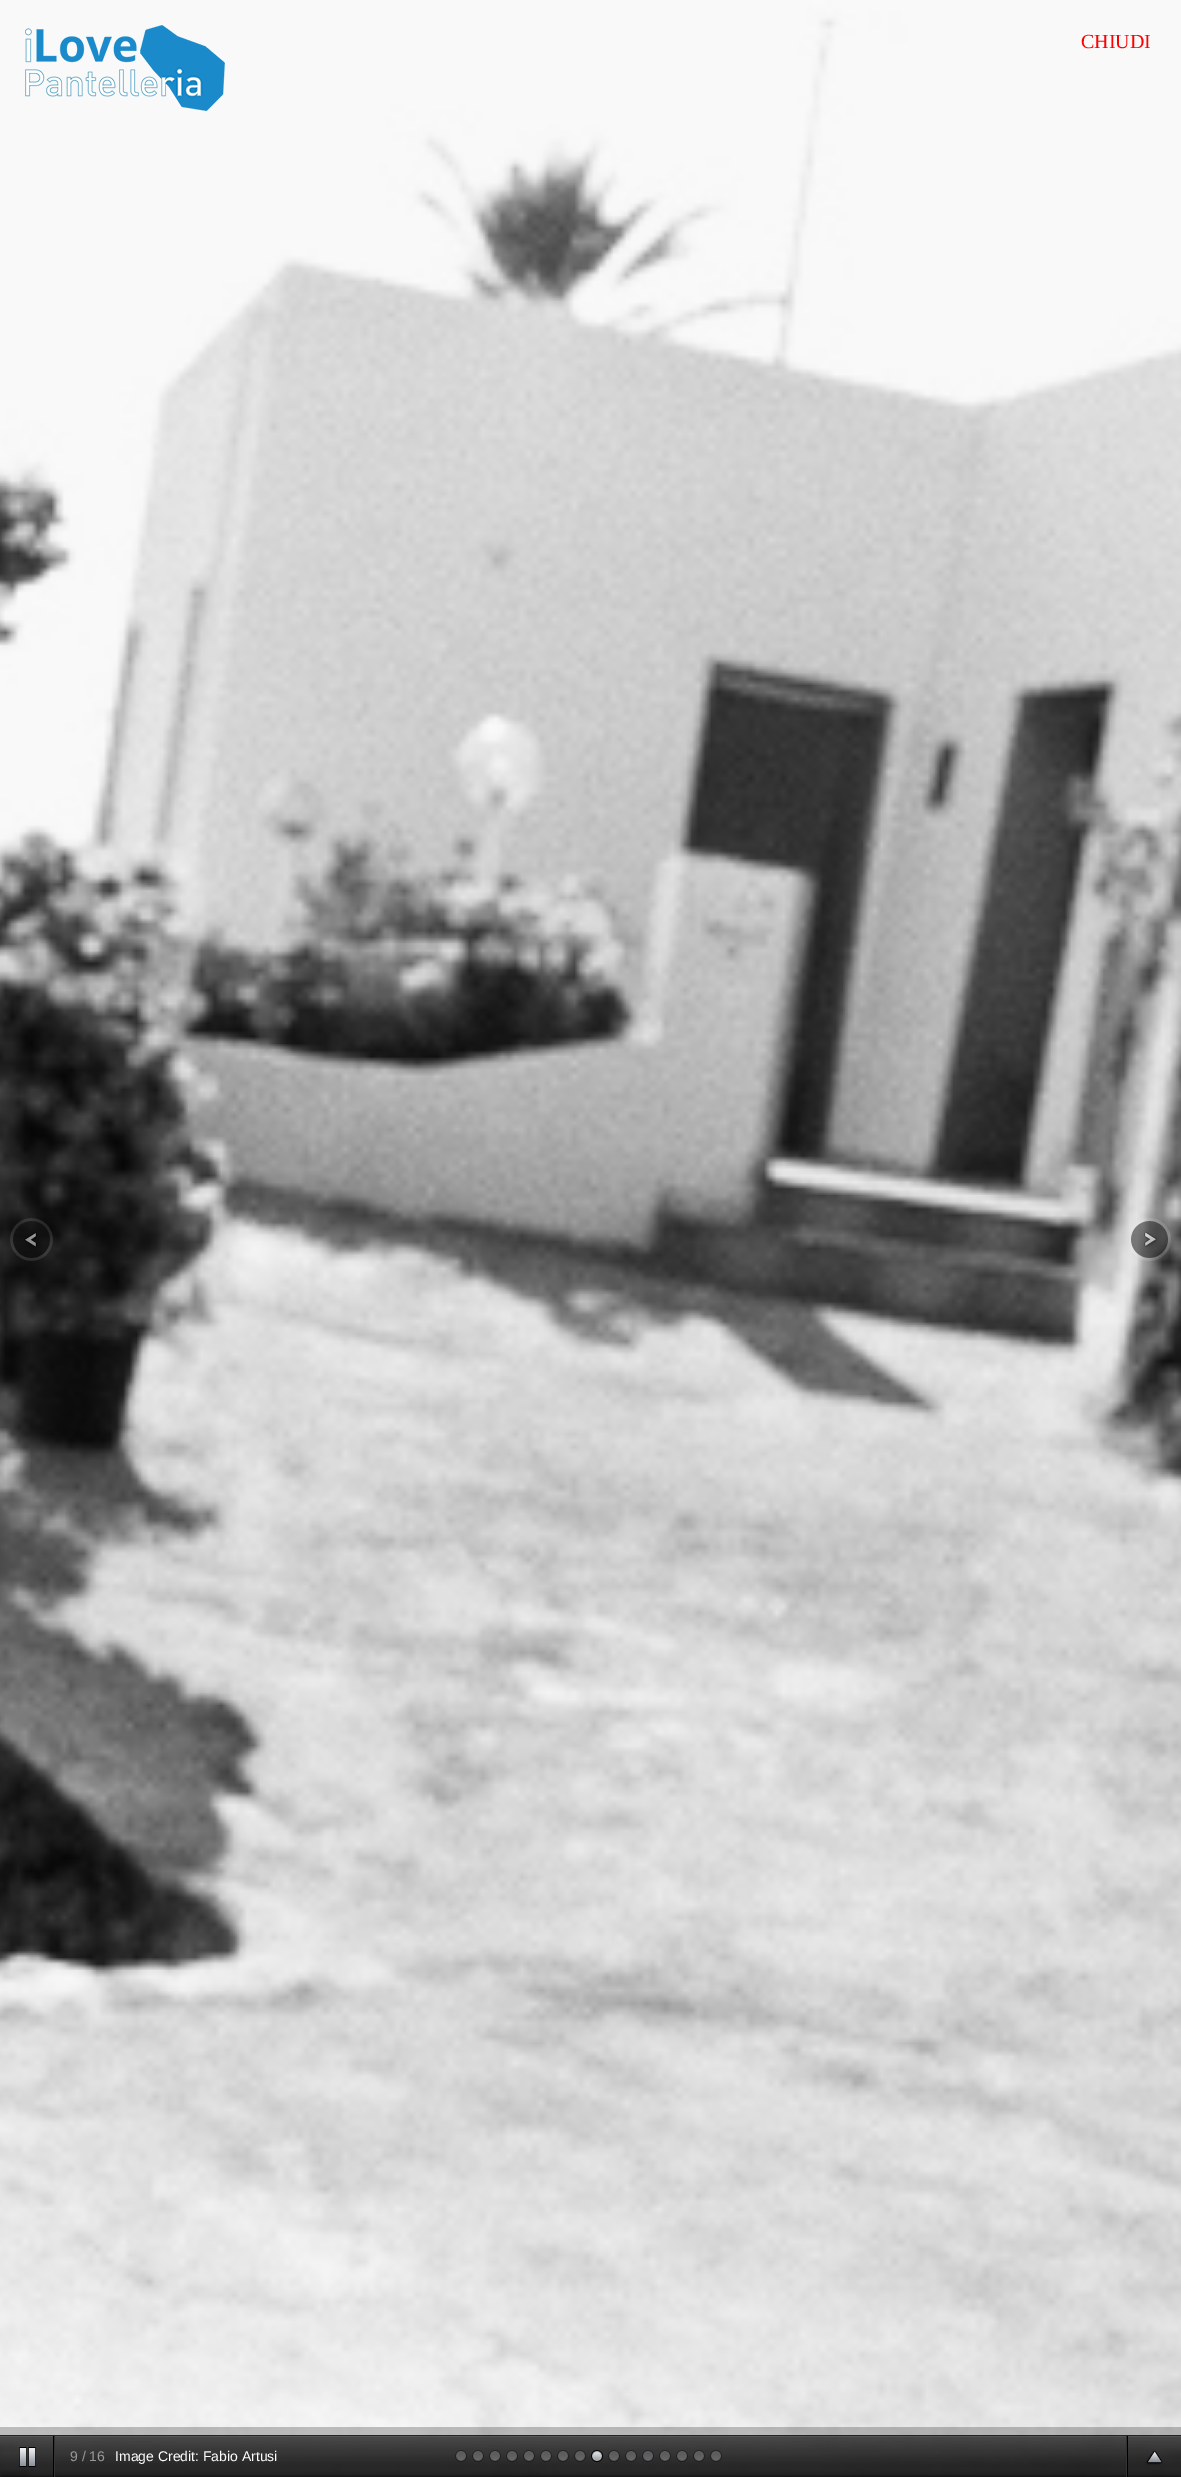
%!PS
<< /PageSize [1181 2477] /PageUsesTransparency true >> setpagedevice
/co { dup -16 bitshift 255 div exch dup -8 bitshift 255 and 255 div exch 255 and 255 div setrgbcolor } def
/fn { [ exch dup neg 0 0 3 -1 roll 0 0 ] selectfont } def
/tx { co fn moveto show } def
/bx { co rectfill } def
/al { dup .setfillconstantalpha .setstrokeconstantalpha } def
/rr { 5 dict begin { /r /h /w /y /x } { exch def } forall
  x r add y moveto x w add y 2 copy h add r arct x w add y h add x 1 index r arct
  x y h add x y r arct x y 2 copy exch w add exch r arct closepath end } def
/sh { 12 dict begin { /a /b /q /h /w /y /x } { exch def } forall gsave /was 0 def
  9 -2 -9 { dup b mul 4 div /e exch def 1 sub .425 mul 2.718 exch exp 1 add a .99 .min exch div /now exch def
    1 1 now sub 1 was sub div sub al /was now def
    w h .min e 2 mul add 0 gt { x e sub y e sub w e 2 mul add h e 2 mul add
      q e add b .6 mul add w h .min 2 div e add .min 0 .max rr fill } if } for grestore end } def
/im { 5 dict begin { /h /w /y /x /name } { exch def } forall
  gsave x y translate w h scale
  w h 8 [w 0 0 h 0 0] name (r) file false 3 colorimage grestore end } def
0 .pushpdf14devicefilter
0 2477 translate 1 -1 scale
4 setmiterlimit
0 0 1181 2477 16#FFFFFF bx
(media/1.raw) 0 0 1181 2477 im
(media/2.raw) 25 25 200 86 im
(media/3.raw) 10 1218 43 43 im
(media/4.raw) 1131 1218 40 43 im
0.25 al
0 2427 1181 8 16#101010 bx
1 al
16#000000 co
0 2477 1181 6 0 2 1 sh
(media/5.raw) 0 2435 1181 42 im
54 2436 1 41 16#333333 bx
(media/6.raw) 19 2436 35 41 im
(media/7.raw) 455 2450 12 12 im
(media/8.raw) 472 2450 12 12 im
(media/9.raw) 489 2450 12 12 im
(media/10.raw) 506 2450 12 12 im
(media/11.raw) 523 2450 12 12 im
(media/12.raw) 540 2450 12 12 im
(media/13.raw) 557 2450 12 12 im
(media/14.raw) 574 2450 12 12 im
(media/15.raw) 591 2450 12 12 im
(media/16.raw) 608 2450 12 12 im
(media/17.raw) 625 2450 12 12 im
(media/18.raw) 642 2450 12 12 im
(media/19.raw) 659 2450 12 12 im
(media/20.raw) 676 2450 12 12 im
(media/21.raw) 693 2450 12 12 im
(media/22.raw) 710 2450 12 12 im
1126 2436 1 41 16#333333 bx
(media/23.raw) 1127 2436 36 41 im
(CHIUDI) 1081 48 /LiberationSerif-Regular 20 16#FF0000 tx
(9 / 16) 70 2461 /LiberationSans-Regular 14 16#999999 tx
(Image Credit: Fabio Artusi) 115 2461 /LiberationSans-Regular 14 16#FFFFFF tx
.poppdf14devicefilter showpage
